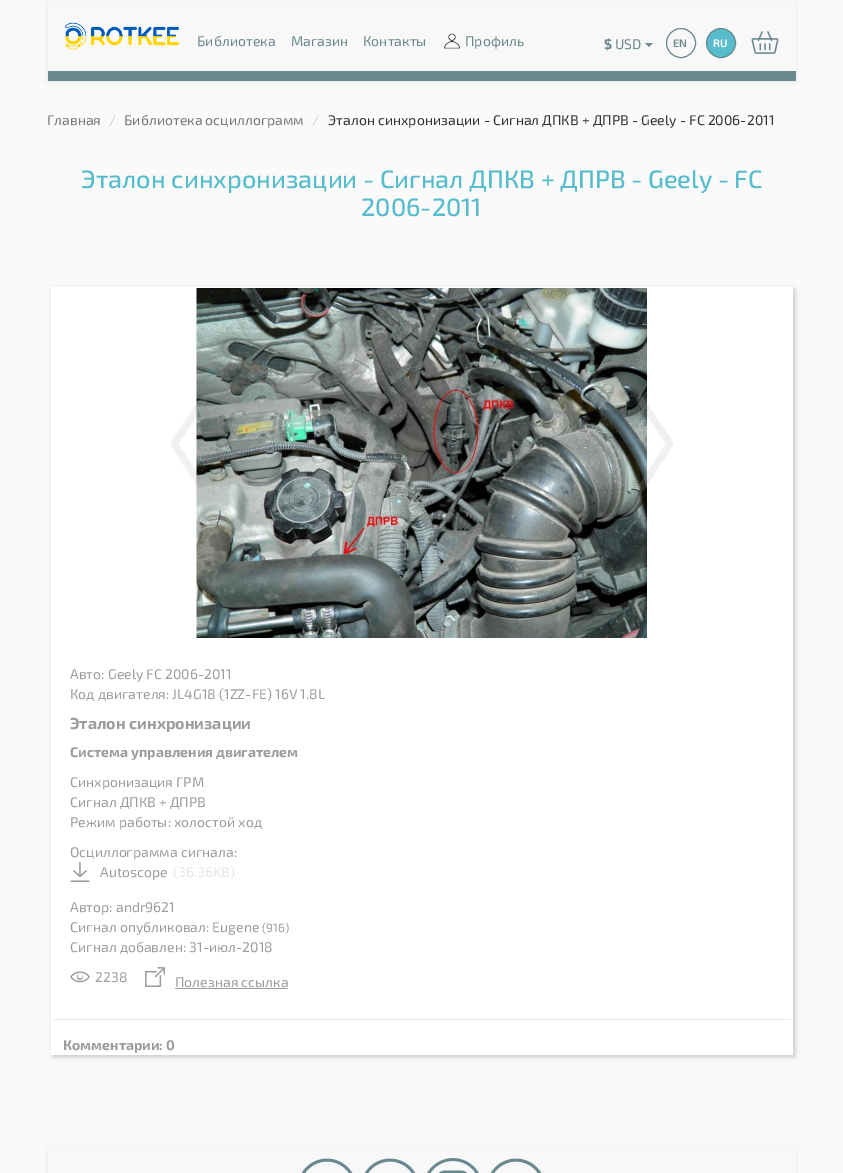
%!PS
<< /PageSize [843 1173] /PageUsesTransparency true >> setpagedevice
/mt/moveto load def
/li/lineto load def
/cp/closepath load def
/fl/fill load def
/st/stroke load def
/gs/gsave load def
/gr/grestore load def
/co { dup -16 bitshift 255 div exch dup -8 bitshift 255 and 255 div exch 255 and 255 div setrgbcolor } def
/fn { [ exch dup neg 0 0 3 -1 roll 0 0 ] selectfont } def
/tx { co fn moveto show } def
/bx { co rectfill } def
/al { dup .setfillconstantalpha .setstrokeconstantalpha } def
/ci { newpath 0 360 arc closepath } def
/rr { 5 dict begin { /r /h /w /y /x } { exch def } forall
  x r add y moveto x w add y 2 copy h add r arct x w add y h add x 1 index r arct
  x y h add x y r arct x y 2 copy exch w add exch r arct closepath end } def
/sh { 12 dict begin { /a /b /q /h /w /y /x } { exch def } forall gsave /was 0 def
  9 -2 -9 { dup b mul 4 div /e exch def 1 sub .425 mul 2.718 exch exp 1 add a .99 .min exch div /now exch def
    1 1 now sub 1 was sub div sub al /was now def
    w h .min e 2 mul add 0 gt { x e sub y e sub w e 2 mul add h e 2 mul add
      q e add b .6 mul add w h .min 2 div e add .min 0 .max rr fill } if } for grestore end } def
/im { 5 dict begin { /h /w /y /x /name } { exch def } forall
  gsave x y translate w h scale
  w h 8 [w 0 0 h 0 0] name (r) file false 3 colorimage grestore end } def
0 .pushpdf14devicefilter
0 1173 translate 1 -1 scale
4 setmiterlimit
0 0 843 1173 16#FAFAFA bx
16#000000 co
48 2 748 80 0 2.5 .07 sh
48 1 748 70 16#F8F8F8 bx
48 71 748 10 16#6A888F bx
(media/1.raw) 65 22 114 28 im
(media/2.raw) 444 33 16 16 im
645 43 mt 653 43 li 649 47 li cp fl
681 43 14.5 ci st
16#57BCCB co
721 43 14.5 ci gs fl gr
16#6A888F co
st
(media/3.raw) 751 31 28 23 im
16#000000 co
53 289 742 768 0 2.5 .2 sh
51 287 742 768 16#FFFFFF bx
(media/5.raw) 195 288 453 350 im
(media/4.raw) 170 395 38 90 im
(media/6.raw) 636 395 38 99 im
(media/7.raw) 70 862 20 20 im
(media/8.raw) 70 971 20 12 im
(media/9.raw) 145 967 20 20 im
175 988 113 1 16#9C9C9C bx
53 1019 738 1 16#EAEAEA bx
16#000000 co
48 1149 748 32 0 2.5 .07 sh
48 1148 748 25 16#F8F8F8 bx
(media/10.raw) 301 1158 52 15 im
(media/11.raw) 364 1158 52 15 im
(media/12.raw) 427 1158 52 15 im
(media/11.raw) 490 1158 52 15 im
(Библиотека) 197 46 /Exo2-Regular 14 16#6A888F tx
(Магазин) 291 46 /Exo2-Regular 14 16#6A888F tx
(Контакты) 363 46 /Exo2-Regular 14 16#6A888F tx
(Профиль) 465 46 /Exo2-Regular 14 16#6A888F tx
($) 604 49 /Exo2-Bold 14 16#6A888F tx
(USD) 615 49 /Exo2-Regular 14 16#6A888F tx
(EN) 673 47 /Exo2-SemiBold 11 16#6A888F tx
(RU) 713 47 /Exo2-SemiBold 11 16#FFFFFF tx
(Главная) 47 125 /Exo2-Regular 14 16#777777 tx
(/) 109 125 /Exo2-Regular 14 16#CCCCCC tx
(Библиотека осциллограмм) 124 125 /Exo2-Regular 14 16#777777 tx
(/) 312 125 /Exo2-Regular 14 16#CCCCCC tx
(Эталон синхронизации - Сигнал ДПКВ + ДПРВ - Geely - FC 2006-2011) 328 125 /Exo2-Regular 14 16#333333 tx
(Эталон синхронизации - Сигнал ДПКВ + ДПРВ - Geely - FC) 81 188 /Exo2-Medium 25.2 16#57BCCB tx
(2006-2011) 361 216 /Exo2-Medium 25.2 16#57BCCB tx
(Авто: Geely FC 2006-2011) 70 679 /Exo2-Regular 14 16#9C9C9C tx
(Код двигателя: JL4G18 \(1ZZ-FE\) 16V 1.8L) 70 699 /Exo2-Regular 14 16#9C9C9C tx
(Эталон синхронизации) 70 729 /Exo2-Bold 16 16#9C9C9C tx
(Система управления двигателем) 70 757 /Exo2-Bold 14 16#9C9C9C tx
(Синхронизация ГРМ) 70 787 /Exo2-Regular 14 16#9C9C9C tx
(Сигнал ДПКВ + ДПРВ) 70 807 /Exo2-Regular 14 16#9C9C9C tx
(Режим работы: холостой ход) 70 827 /Exo2-Regular 14 16#9C9C9C tx
(Осциллограмма сигнала:) 70 857 /Exo2-Regular 14 16#9C9C9C tx
(Autoscope) 100 877 /Exo2-Regular 14 16#9C9C9C tx
(\(36.36KB\)) 173 877 /Exo2-Regular 14 16#E8E6E8 tx
(Автор: andr9621) 70 912 /Exo2-Regular 14 16#9C9C9C tx
(Сигнал опубликовал: Eugene) 70 932 /Exo2-Regular 14 16#9C9C9C tx
(\(916\)) 262 932 /Exo2-Regular 12 16#9C9C9C tx
(Сигнал добавлен: 31-июл-2018) 70 952 /Exo2-Regular 14 16#9C9C9C tx
(2238) 95 982 /Exo2-Regular 14 16#9C9C9C tx
(Полезная ссылка) 175 987 /Exo2-Regular 14 16#9C9C9C tx
(Комментарии: 0) 63 1050 /Exo2-Bold 14 16#9C9C9C tx
.poppdf14devicefilter showpage
